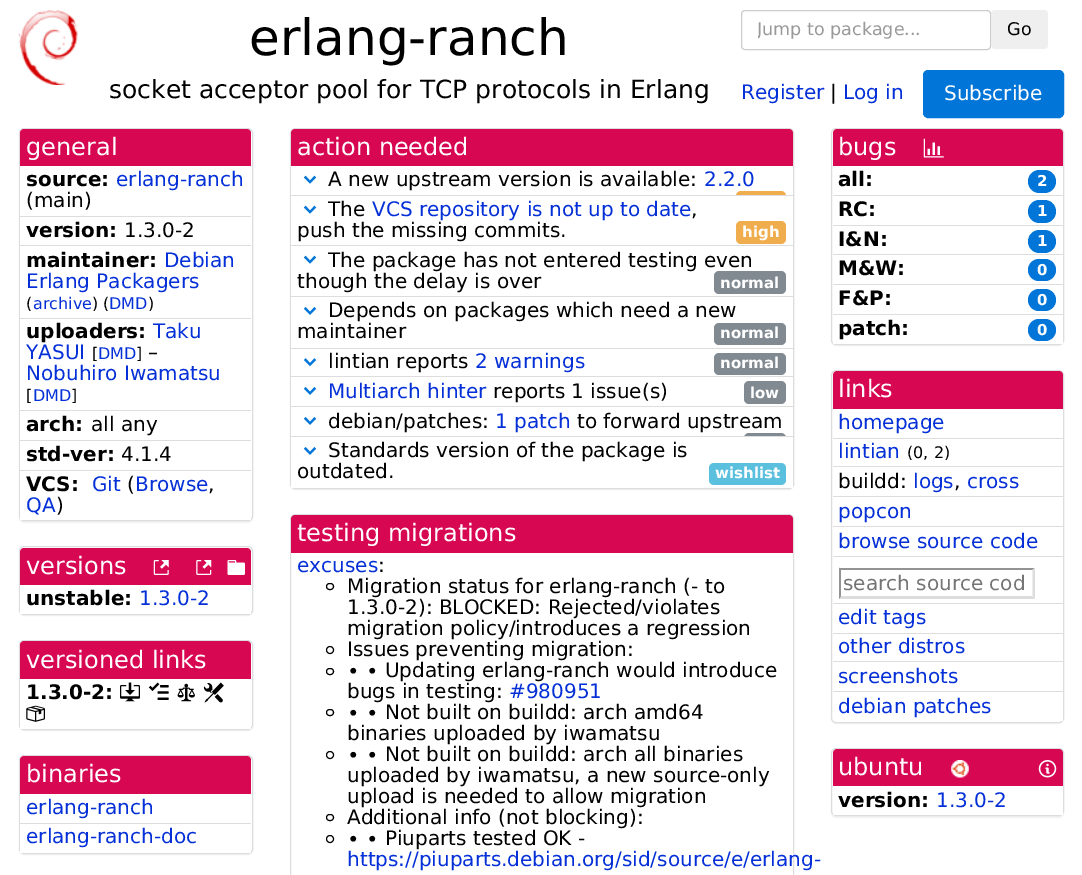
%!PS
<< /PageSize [1082 875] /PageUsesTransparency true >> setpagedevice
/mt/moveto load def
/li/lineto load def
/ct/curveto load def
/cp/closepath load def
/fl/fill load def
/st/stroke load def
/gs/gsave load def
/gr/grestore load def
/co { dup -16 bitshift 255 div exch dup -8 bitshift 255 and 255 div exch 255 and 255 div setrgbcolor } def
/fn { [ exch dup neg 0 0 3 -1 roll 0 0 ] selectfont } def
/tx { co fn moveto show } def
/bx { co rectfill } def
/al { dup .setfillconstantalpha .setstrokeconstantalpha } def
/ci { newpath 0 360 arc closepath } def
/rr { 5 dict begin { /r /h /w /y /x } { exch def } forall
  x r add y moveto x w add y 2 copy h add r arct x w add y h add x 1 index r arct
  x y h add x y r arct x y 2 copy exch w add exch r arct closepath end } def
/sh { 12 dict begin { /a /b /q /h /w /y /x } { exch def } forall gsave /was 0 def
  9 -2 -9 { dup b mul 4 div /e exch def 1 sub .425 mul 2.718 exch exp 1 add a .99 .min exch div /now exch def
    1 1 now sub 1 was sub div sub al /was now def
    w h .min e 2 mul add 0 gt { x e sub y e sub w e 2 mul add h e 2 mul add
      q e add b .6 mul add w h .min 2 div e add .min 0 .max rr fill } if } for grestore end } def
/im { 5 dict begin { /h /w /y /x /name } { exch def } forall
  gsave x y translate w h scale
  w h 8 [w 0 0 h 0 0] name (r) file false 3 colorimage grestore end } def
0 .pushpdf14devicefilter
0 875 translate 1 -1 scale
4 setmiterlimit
0 0 1082 875 16#FFFFFF bx
(media/1.raw) 18 10 60 75 im
16#CCCCCC co
741.5 10.5 249 39 3.5 rr st
16#EFEFEF co
991 10 57 39 4 rr fl
16#0275D8 co
923.5 70.5 140 47 4.5 rr gs fl gr
st
16#000000 co
19 129 234 394 5 .5 .05 sh
16#FFFFFF co
19.5 128.5 233 392 4.5 rr gs fl gr
16#DDDDDD co
st
16#D70751 co
24 129 mt 247 129 li 249 129 251 131 251 133 ct 251 168 li 20 168 li 20 133 li 20 131 22 129 24 129 ct cp fl
20 166 231 354 16#FFFFFF bx
20 216 231 1 16#DDDDDD bx
20 245 231 1 16#DDDDDD bx
20 318 231 1 16#DDDDDD bx
20 410 231 1 16#DDDDDD bx
20 440 231 1 16#DDDDDD bx
20 470 231 1 16#DDDDDD bx
16#000000 co
19 548 234 68 5 .5 .05 sh
16#FFFFFF co
19.5 546.5 233 68 4.5 rr gs fl gr
16#DDDDDD co
st
16#D70751 co
24 548 mt 247 548 li 249 548 251 550 251 552 ct 251 586 li 20 586 li 20 552 li 20 550 22 548 24 548 ct cp fl
(media/2.raw) 153 560 16 15 im
(media/3.raw) 196 560 16 15 im
(media/4.raw) 227 560 18 15 im
20 585 231 29 16#FFFFFF bx
16#000000 co
19 641 234 90 5 .5 .05 sh
16#FFFFFF co
19.5 640.5 233 89 4.5 rr gs fl gr
16#DDDDDD co
st
16#D70751 co
24 641 mt 247 641 li 249 641 251 643 251 645 ct 251 680 li 20 680 li 20 645 li 20 643 22 641 24 641 ct cp fl
20 679 231 50 16#FFFFFF bx
(media/5.raw) 120 682 20 20 im
(media/6.raw) 148 682 21 18 im
(media/7.raw) 177 683 18 19 im
(media/8.raw) 203 682 21 21 im
(media/9.raw) 26 705 19 17 im
16#000000 co
19 756 234 99 5 .5 .05 sh
16#FFFFFF co
19.5 755.5 233 98 4.5 rr gs fl gr
16#DDDDDD co
st
16#D70751 co
24 756 mt 247 756 li 249 756 251 758 251 760 ct 251 795 li 20 795 li 20 760 li 20 758 22 756 24 756 ct cp fl
20 794 231 59 16#FFFFFF bx
20 823 231 1 16#DDDDDD bx
16#000000 co
290 129 504 361 5 .5 .05 sh
16#DDDDDD co
290.5 128.5 503 360 4.5 rr st
16#D70751 co
295 129 mt 789 129 li 791 129 793 131 793 133 ct 793 168 li 291 168 li 291 133 li 291 131 293 129 295 129 ct cp fl
291 166 502 322 16#FFFFFF bx
(media/10.raw) 303 175 14 9 im
16#F0AD4E co
736 191 50 23 5 rr fl
736 196 50 18 16#FFFFFF bx
291 195 502 1 16#DDDDDD bx
291 245 502 1 16#DDDDDD bx
(media/10.raw) 303 205 14 9 im
16#F0AD4E co
736 221 50 23 5 rr fl
291 296 502 1 16#DDDDDD bx
(media/10.raw) 303 255 14 9 im
16#818A91 co
714 271 72 23 5 rr fl
291 348 502 1 16#DDDDDD bx
(media/11.raw) 303 307 14 8 im
16#818A91 co
714 323 72 22 5 rr fl
291 376 502 1 16#DDDDDD bx
(media/12.raw) 303 358 14 9 im
16#818A91 co
714 353 72 22 5 rr fl
291 406 502 1 16#DDDDDD bx
(media/11.raw) 303 387 14 8 im
16#818A91 co
744 381 42 23 5 rr fl
(media/11.raw) 303 417 14 8 im
744 433 42 22 5 rr fl
16#FFFFFF co
291 436 mt 793 436 li 793 483 li 793 486 791 488 788 488 ct 296 488 li 293 488 291 486 291 483 ct cp fl
291 436 502 1 16#DDDDDD bx
(media/11.raw) 303 447 14 8 im
16#5BC0DE co
709 463 77 22 5 rr fl
16#DDDDDD co
290.5 514.5 503 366 4.5 rr st
16#D70751 co
295 515 mt 789 515 li 791 515 793 517 793 519 ct 793 554 li 291 554 li 291 519 li 291 517 293 515 295 515 ct cp fl
291 553 502 1 16#FFFFFF bx
16#000000 co
326.5 583.5 7 6 3 rr st
330 650 3.5 ci st
326.5 668.5 7 6 3 rr st
326.5 709.5 7 6 3 rr st
330 755 3.5 ci st
326.5 814.5 7 6 3 rr st
330 839 3.5 ci st
831 129 233 217 5 .5 .05 sh
16#FFFFFF co
831.5 128.5 232 216 4.5 rr gs fl gr
16#DDDDDD co
st
16#D70751 co
837 129 mt 1059 129 li 1061 129 1063 131 1063 133 ct 1063 168 li 833 168 li 833 133 li 833 131 835 129 837 129 ct cp fl
(media/13.raw) 923 138 21 20 im
833 166 230 178 16#FFFFFF bx
833 195 230 1 16#DDDDDD bx
16#0275D8 co
1028 170 28 23 11.5 rr fl
833 225 230 1 16#DDDDDD bx
16#0275D8 co
1028 200 28 23 11.5 rr fl
833 254 230 1 16#DDDDDD bx
16#0275D8 co
1028 230 28 23 11.5 rr fl
833 284 230 1 16#DDDDDD bx
16#0275D8 co
1028 259 28 22 11 rr fl
1028 289 28 22 11 rr fl
833 314 230 1 16#DDDDDD bx
16#0275D8 co
1028 319 28 22 11 rr fl
16#000000 co
831 371 233 353 5 .5 .05 sh
16#FFFFFF co
831.5 370.5 232 352 4.5 rr gs fl gr
16#DDDDDD co
st
16#D70751 co
837 371 mt 1059 371 li 1061 371 1063 373 1063 375 ct 1063 410 li 833 410 li 833 375 li 833 373 835 371 837 371 ct cp fl
833 409 230 312 16#FFFFFF bx
833 438 230 1 16#DDDDDD bx
833 466 230 1 16#DDDDDD bx
833 496 230 1 16#DDDDDD bx
833 526 230 1 16#DDDDDD bx
833 556 230 1 16#DDDDDD bx
833 603 230 1 16#DDDDDD bx
16#939393 co
839 568 mt 1035 568 li 1032 570 li 841 570 li cp fl
16#DDDDDD co
1035 567.5 mt 1035 599 li 1032.5 596 li 1032.5 570 li cp fl
1035 599 mt 839 599 li 841 596 li 1032 596 li cp fl
16#939393 co
839 599 mt 839 567.5 li 841 570 li 841 596 li cp fl
833 633 230 1 16#DDDDDD bx
833 661 230 1 16#DDDDDD bx
833 691 230 1 16#DDDDDD bx
16#000000 co
831 749 233 69 5 .5 .05 sh
16#FFFFFF co
831.5 748.5 232 67 4.5 rr gs fl gr
16#DDDDDD co
st
16#D70751 co
837 749 mt 1059 749 li 1061 749 1063 751 1063 753 ct 1063 788 li 833 788 li 833 753 li 833 751 835 749 837 749 ct cp fl
(media/14.raw) 951 760 18 18 im
(media/15.raw) 1038 760 19 18 im
833 786 230 29 16#FFFFFF bx
(erlang-ranch) 249 55 /DejaVuSans-Regular 50 16#000000 tx
(socket acceptor pool for TCP protocols in Erlang) 109 98 /DejaVuSans-Regular 25 16#000000 tx
gs
758 19 212 20 rectclip
(Jump to package...) 757 35 /DejaVuSans-Regular 17.5 16#999999 tx
gr
(Go) 1007 35 /DejaVuSans-Regular 17.5 16#000000 tx
(Register) 741 99 /DejaVuSans-Regular 20 16#0530D7 tx
(|) 830 99 /DejaVuSans-Regular 20 16#000000 tx
(Log in) 843 99 /DejaVuSans-Regular 20 16#0530D7 tx
(Subscribe) 944 100 /DejaVuSans-Regular 20 16#FFFFFF tx
(general) 26 155 /DejaVuSans-Regular 24 16#FFFFFF tx
(source:) 26 186 /DejaVuSans-Bold 20 16#000000 tx
(erlang-ranch) 116 186 /DejaVuSans-Regular 20 16#0530D7 tx
(\(main\)) 26 207 /DejaVuSans-Regular 20 16#000000 tx
(version:) 26 237 /DejaVuSans-Bold 20 16#000000 tx
(1.3.0-2) 124 237 /DejaVuSans-Regular 20 16#000000 tx
(maintainer:) 26 267 /DejaVuSans-Bold 20 16#000000 tx
(Debian) 164 267 /DejaVuSans-Regular 20 16#0530D7 tx
(Erlang Packagers) 26 288 /DejaVuSans-Regular 20 16#0530D7 tx
(\() 26 309 /DejaVuSans-Regular 16 16#000000 tx
(archive) 33 309 /DejaVuSans-Regular 16 16#0530D7 tx
(\) \() 92 309 /DejaVuSans-Regular 16 16#000000 tx
(DMD) 109 309 /DejaVuSans-Regular 16 16#0530D7 tx
(\)) 148 309 /DejaVuSans-Regular 16 16#000000 tx
(uploaders:) 26 338 /DejaVuSans-Bold 20 16#000000 tx
(Taku) 153 338 /DejaVuSans-Regular 20 16#0530D7 tx
(YASUI) 26 359 /DejaVuSans-Regular 20 16#0530D7 tx
([) 92 359 /DejaVuSans-Regular 16 16#000000 tx
(DMD) 98 359 /DejaVuSans-Regular 16 16#0530D7 tx
(]) 136 359 /DejaVuSans-Regular 16 16#000000 tx
(–) 148 359 /DejaVuSans-Regular 20 16#000000 tx
(Nobuhiro Iwamatsu) 26 380 /DejaVuSans-Regular 20 16#0530D7 tx
([) 26 401 /DejaVuSans-Regular 16 16#000000 tx
(DMD) 33 401 /DejaVuSans-Regular 16 16#0530D7 tx
(]) 71 401 /DejaVuSans-Regular 16 16#000000 tx
(arch:) 26 431 /DejaVuSans-Bold 20 16#000000 tx
(all any) 91 431 /DejaVuSans-Regular 20 16#000000 tx
(std-ver:) 26 461 /DejaVuSans-Bold 20 16#000000 tx
(4.1.4) 121 461 /DejaVuSans-Regular 20 16#000000 tx
(VCS:) 26 491 /DejaVuSans-Bold 20 16#000000 tx
(Git) 92 491 /DejaVuSans-Regular 20 16#0530D7 tx
(\() 127 491 /DejaVuSans-Regular 20 16#000000 tx
(Browse) 135 491 /DejaVuSans-Regular 20 16#0530D7 tx
(,) 208 491 /DejaVuSans-Regular 20 16#000000 tx
(QA) 26 512 /DejaVuSans-Regular 20 16#0530D7 tx
(\)) 56 512 /DejaVuSans-Regular 20 16#000000 tx
(versions) 26 574 /DejaVuSans-Regular 24 16#FFFFFF tx
(unstable:) 26 605 /DejaVuSans-Bold 20 16#000000 tx
(1.3.0-2) 139 605 /DejaVuSans-Regular 20 16#0530D7 tx
(versioned links) 26 668 /DejaVuSans-Regular 24 16#FFFFFF tx
(1.3.0-2:) 26 699 /DejaVuSans-Bold 20 16#000000 tx
(binaries) 26 782 /DejaVuSans-Regular 24 16#FFFFFF tx
(erlang-ranch) 26 814 /DejaVuSans-Regular 20 16#0530D7 tx
(erlang-ranch-doc) 26 843 /DejaVuSans-Regular 20 16#0530D7 tx
(action needed) 297 155 /DejaVuSans-Regular 24 16#FFFFFF tx
(A new upstream version is available:) 328 186 /DejaVuSans-Regular 20 16#000000 tx
(2.2.0) 704 186 /DejaVuSans-Regular 20 16#0530D7 tx
(The) 328 216 /DejaVuSans-Regular 20 16#000000 tx
(VCS repository is not up to date) 372 216 /DejaVuSans-Regular 20 16#0530D7 tx
(,) 691 216 /DejaVuSans-Regular 20 16#000000 tx
(push the missing commits.) 297 237 /DejaVuSans-Regular 20 16#000000 tx
(high) 742 237 /DejaVuSans-Bold 15 16#FFFFFF tx
(The package has not entered testing even) 328 267 /DejaVuSans-Regular 20 16#000000 tx
(though the delay is over) 297 288 /DejaVuSans-Regular 20 16#000000 tx
(normal) 720 288 /DejaVuSans-Bold 15 16#FFFFFF tx
(Depends on packages which need a new) 328 317 /DejaVuSans-Regular 20 16#000000 tx
(maintainer) 297 338 /DejaVuSans-Regular 20 16#000000 tx
(normal) 720 338 /DejaVuSans-Bold 15 16#FFFFFF tx
(lintian reports) 328 368 /DejaVuSans-Regular 20 16#000000 tx
(2 warnings) 475 368 /DejaVuSans-Regular 20 16#0530D7 tx
(normal) 720 368 /DejaVuSans-Bold 15 16#FFFFFF tx
(Multiarch hinter) 328 398 /DejaVuSans-Regular 20 16#0530D7 tx
(reports 1 issue\(s\)) 493 398 /DejaVuSans-Regular 20 16#000000 tx
(low) 750 398 /DejaVuSans-Bold 15 16#FFFFFF tx
(debian/patches:) 328 428 /DejaVuSans-Regular 20 16#000000 tx
(1 patch) 495 428 /DejaVuSans-Regular 20 16#0530D7 tx
(to forward upstream) 577 428 /DejaVuSans-Regular 20 16#000000 tx
(Standards version of the package is) 328 457 /DejaVuSans-Regular 20 16#000000 tx
(outdated.) 297 478 /DejaVuSans-Regular 20 16#000000 tx
(wishlist) 715 478 /DejaVuSans-Bold 15 16#FFFFFF tx
(testing migrations) 297 541 /DejaVuSans-Regular 24 16#FFFFFF tx
(excuses) 297 572 /DejaVuSans-Regular 20 16#0530D7 tx
(:) 378 572 /DejaVuSans-Regular 20 16#000000 tx
(Migration status for erlang-ranch \(- to) 347 593 /DejaVuSans-Regular 20 16#000000 tx
(1.3.0-2\): BLOCKED: Rejected/violates) 347 614 /DejaVuSans-Regular 20 16#000000 tx
(migration policy/introduces a regression) 347 635 /DejaVuSans-Regular 20 16#000000 tx
(Issues preventing migration:) 347 656 /DejaVuSans-Regular 20 16#000000 tx
(∙ ∙ Updating erlang-ranch would introduce) 347 677 /DejaVuSans-Regular 20 16#000000 tx
(bugs in testing:) 347 698 /DejaVuSans-Regular 20 16#000000 tx
(#980951) 509 698 /DejaVuSans-Regular 20 16#0530D7 tx
(∙ ∙ Not built on buildd: arch amd64) 347 719 /DejaVuSans-Regular 20 16#000000 tx
(binaries uploaded by iwamatsu) 347 740 /DejaVuSans-Regular 20 16#000000 tx
(∙ ∙ Not built on buildd: arch all binaries) 347 761 /DejaVuSans-Regular 20 16#000000 tx
(uploaded by iwamatsu, a new source-only) 347 782 /DejaVuSans-Regular 20 16#000000 tx
(upload is needed to allow migration) 347 803 /DejaVuSans-Regular 20 16#000000 tx
(Additional info \(not blocking\):) 347 824 /DejaVuSans-Regular 20 16#000000 tx
(∙ ∙ Piuparts tested OK -) 347 845 /DejaVuSans-Regular 20 16#000000 tx
(https://piuparts.debian.org/sid/source/e/erlang-) 347 866 /DejaVuSans-Regular 20 16#0530D7 tx
(bugs) 838 155 /DejaVuSans-Regular 24 16#FFFFFF tx
(all:) 838 186 /DejaVuSans-Bold 20 16#000000 tx
(2) 1037 186 /DejaVuSans-Bold 15 16#FFFFFF tx
(RC:) 838 216 /DejaVuSans-Bold 20 16#000000 tx
(1) 1037 216 /DejaVuSans-Bold 15 16#FFFFFF tx
(I&N:) 838 246 /DejaVuSans-Bold 20 16#000000 tx
(1) 1037 246 /DejaVuSans-Bold 15 16#FFFFFF tx
(M&W:) 838 275 /DejaVuSans-Bold 20 16#000000 tx
(0) 1037 275 /DejaVuSans-Bold 15 16#FFFFFF tx
(F&P:) 838 305 /DejaVuSans-Bold 20 16#000000 tx
(0) 1037 305 /DejaVuSans-Bold 15 16#FFFFFF tx
(patch:) 838 335 /DejaVuSans-Bold 20 16#000000 tx
(0) 1037 335 /DejaVuSans-Bold 15 16#FFFFFF tx
(links) 838 397 /DejaVuSans-Regular 24 16#FFFFFF tx
(homepage) 838 429 /DejaVuSans-Regular 20 16#0530D7 tx
(lintian) 838 458 /DejaVuSans-Regular 20 16#0530D7 tx
(\(0, 2\)) 907 458 /DejaVuSans-Regular 16 16#000000 tx
(buildd:) 838 488 /DejaVuSans-Regular 20 16#000000 tx
(logs) 913 488 /DejaVuSans-Regular 20 16#0530D7 tx
(,) 954 488 /DejaVuSans-Regular 20 16#000000 tx
(cross) 967 488 /DejaVuSans-Regular 20 16#0530D7 tx
(popcon) 838 518 /DejaVuSans-Regular 20 16#0530D7 tx
(browse source code) 838 548 /DejaVuSans-Regular 20 16#0530D7 tx
(search source cod) 843 590 /DejaVuSans-Regular 20 16#757575 tx
(edit tags) 838 624 /DejaVuSans-Regular 20 16#0530D7 tx
(other distros) 838 653 /DejaVuSans-Regular 20 16#0530D7 tx
(screenshots) 838 683 /DejaVuSans-Regular 20 16#0530D7 tx
(debian patches) 838 713 /DejaVuSans-Regular 20 16#0530D7 tx
(ubuntu) 838 775 /DejaVuSans-Regular 24 16#FFFFFF tx
(version:) 838 807 /DejaVuSans-Bold 20 16#000000 tx
(1.3.0-2) 936 807 /DejaVuSans-Regular 20 16#0530D7 tx
.poppdf14devicefilter showpage
